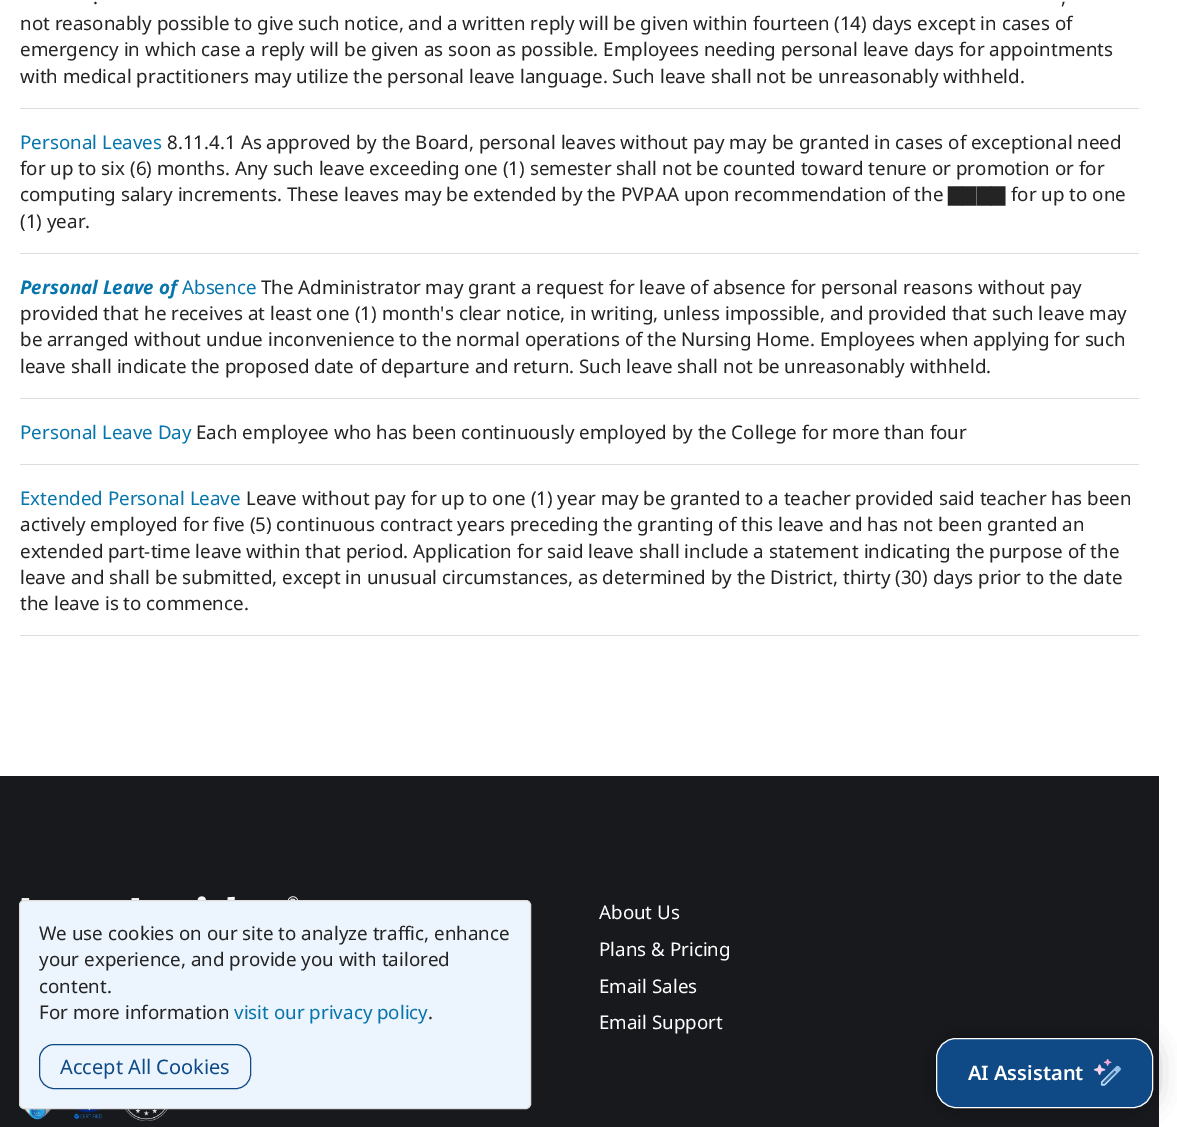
%!PS
<< /PageSize [1177 1127] /PageUsesTransparency true >> setpagedevice
/fl/fill load def
/st/stroke load def
/gs/gsave load def
/gr/grestore load def
/co { dup -16 bitshift 255 div exch dup -8 bitshift 255 and 255 div exch 255 and 255 div setrgbcolor } def
/fn { [ exch dup neg 0 0 3 -1 roll 0 0 ] selectfont } def
/tx { co fn moveto show } def
/bx { co rectfill } def
/al { dup .setfillconstantalpha .setstrokeconstantalpha } def
/rr { 5 dict begin { /r /h /w /y /x } { exch def } forall
  x r add y moveto x w add y 2 copy h add r arct x w add y h add x 1 index r arct
  x y h add x y r arct x y 2 copy exch w add exch r arct closepath end } def
/sh { 12 dict begin { /a /b /q /h /w /y /x } { exch def } forall gsave /was 0 def
  9 -2 -9 { dup b mul 4 div /e exch def 1 sub .425 mul 2.718 exch exp 1 add a .99 .min exch div /now exch def
    1 1 now sub 1 was sub div sub al /was now def
    w h .min e 2 mul add 0 gt { x e sub y e sub w e 2 mul add h e 2 mul add
      q e add b .6 mul add w h .min 2 div e add .min 0 .max rr fill } if } for grestore end } def
/im { 5 dict begin { /h /w /y /x /name } { exch def } forall
  gsave x y translate w h scale
  w h 8 [w 0 0 h 0 0] name (r) file false 3 colorimage grestore end } def
0 .pushpdf14devicefilter
0 1127 translate 1 -1 scale
4 setmiterlimit
0 0 1177 1127 16#FFFFFF bx
20 108 1119 1 16#DDDDDD bx
20 253 1119 1 16#DDDDDD bx
20 398 1119 1 16#DDDDDD bx
20 464 1119 1 16#DDDDDD bx
20 635 1119 1 16#DDDDDD bx
0 776 1159 351 16#17191D bx
(media/1.raw) 21 896 277 5 im
(media/2.raw) 23 1108 28 12 im
(media/3.raw) 74 1109 29 10 im
(media/4.raw) 125 1109 43 12 im
16#000000 co
19 900 512 209 5 2.5 .1 sh
16#ECF4FD co
19.5 900.5 511 208 4.5 rr gs fl gr
16#DDDDDD co
st
16#0F4A86 co
39.5 1044.5 211 44 14.5 rr st
16#000000 co
936 1038 217 70 20 12.5 .33 sh
16#0F4A86 co
936.5 1038.5 216 69 19.5 rr gs fl gr
16#FFFFFF co
st
(media/5.raw) 1094 1059 27 27 im
(.) 93 4 /NotoSans-Regular 18.75 16#242424 tx
(,) 1061 4 /NotoSans-Regular 18.75 16#242424 tx
(not reasonably possible to give such notice, and a written reply will be given within fourteen \(14\) days except in cases of) 20 30 /NotoSans-Regular 18.75 16#242424 tx
(emergency in which case a reply will be given as soon as possible. Employees needing personal leave days for appointments) 20 56 /NotoSans-Regular 18.75 16#242424 tx
(with medical practitioners may utilize the personal leave language. Such leave shall not be unreasonably withheld.) 20 83 /NotoSans-Regular 18.75 16#242424 tx
(Personal Leaves) 20 149 /NotoSans-Regular 18.75 16#0675AC tx
(8.11.4.1 As approved by the Board, personal leaves without pay may be granted in cases of exceptional need) 167 149 /NotoSans-Regular 18.75 16#242424 tx
(for up to six \(6\) months. Any such leave exceeding one \(1\) semester shall not be counted toward tenure or promotion or for) 20 175 /NotoSans-Regular 18.75 16#242424 tx
(computing salary increments. These leaves may be extended by the PVPAA upon recommendation of the) 20 201 /NotoSans-Regular 18.75 16#242424 tx
(▇▇▇▇) 948 201 /DejaVuSans-Regular 18.75 16#242424 tx
(for up to one) 1011 201 /NotoSans-Regular 18.75 16#242424 tx
(\(1\) year.) 20 228 /NotoSans-Regular 18.75 16#242424 tx
(Personal Leave of) 20 294 /NotoSans-BoldItalic 18.75 16#0675AC tx
(Absence) 182 294 /NotoSans-Regular 18.75 16#0675AC tx
(The Administrator may grant a request for leave of absence for personal reasons without pay) 261 294 /NotoSans-Regular 18.75 16#242424 tx
(provided that he receives at least one \(1\) month's clear notice, in writing, unless impossible, and provided that such leave may) 20 320 /NotoSans-Regular 18.75 16#242424 tx
(be arranged without undue inconvenience to the normal operations of the Nursing Home. Employees when applying for such) 20 346 /NotoSans-Regular 18.75 16#242424 tx
(leave shall indicate the proposed date of departure and return. Such leave shall not be unreasonably withheld.) 20 373 /NotoSans-Regular 18.75 16#242424 tx
(Personal Leave Day) 20 439 /NotoSans-Regular 18.75 16#0675AC tx
(Each employee who has been continuously employed by the College for more than four) 196 439 /NotoSans-Regular 18.75 16#242424 tx
(Extended Personal Leave) 20 505 /NotoSans-Regular 18.75 16#0675AC tx
(Leave without pay for up to one \(1\) year may be granted to a teacher provided said teacher has been) 246 505 /NotoSans-Regular 18.75 16#242424 tx
(actively employed for five \(5\) continuous contract years preceding the granting of this leave and has not been granted an) 20 531 /NotoSans-Regular 18.75 16#242424 tx
(extended part-time leave within that period. Application for said leave shall include a statement indicating the purpose of the) 20 558 /NotoSans-Regular 18.75 16#242424 tx
(leave and shall be submitted, except in unusual circumstances, as determined by the District, thirty \(30\) days prior to the date) 20 584 /NotoSans-Regular 18.75 16#242424 tx
(the leave is to commence.) 20 610 /NotoSans-Regular 18.75 16#242424 tx
(We use cookies on our site to analyze traffic, enhance) 39 940 /NotoSans-Regular 18.75 16#242424 tx
(your experience, and provide you with tailored) 39 966 /NotoSans-Regular 18.75 16#242424 tx
(content.) 39 993 /NotoSans-Regular 18.75 16#242424 tx
(For more information) 39 1019 /NotoSans-Regular 18.75 16#242424 tx
(visit our privacy policy) 234 1019 /NotoSans-Regular 18.75 16#0675AC tx
(.) 428 1019 /NotoSans-Regular 18.75 16#242424 tx
(Accept All Cookies) 60 1074 /NotoSans-Regular 20 16#0F4A86 tx
(About Us) 599 919 /NotoSans-Regular 18.75 16#FFFFFF tx
(Plans & Pricing) 599 956 /NotoSans-Regular 18.75 16#FFFFFF tx
(Email Sales) 599 993 /NotoSans-Regular 18.75 16#FFFFFF tx
(Email Support) 599 1029 /NotoSans-Regular 18.75 16#FFFFFF tx
(AI Assistant) 968 1080 /NotoSans-SemiBold 20 16#FFFFFF tx
.poppdf14devicefilter showpage
